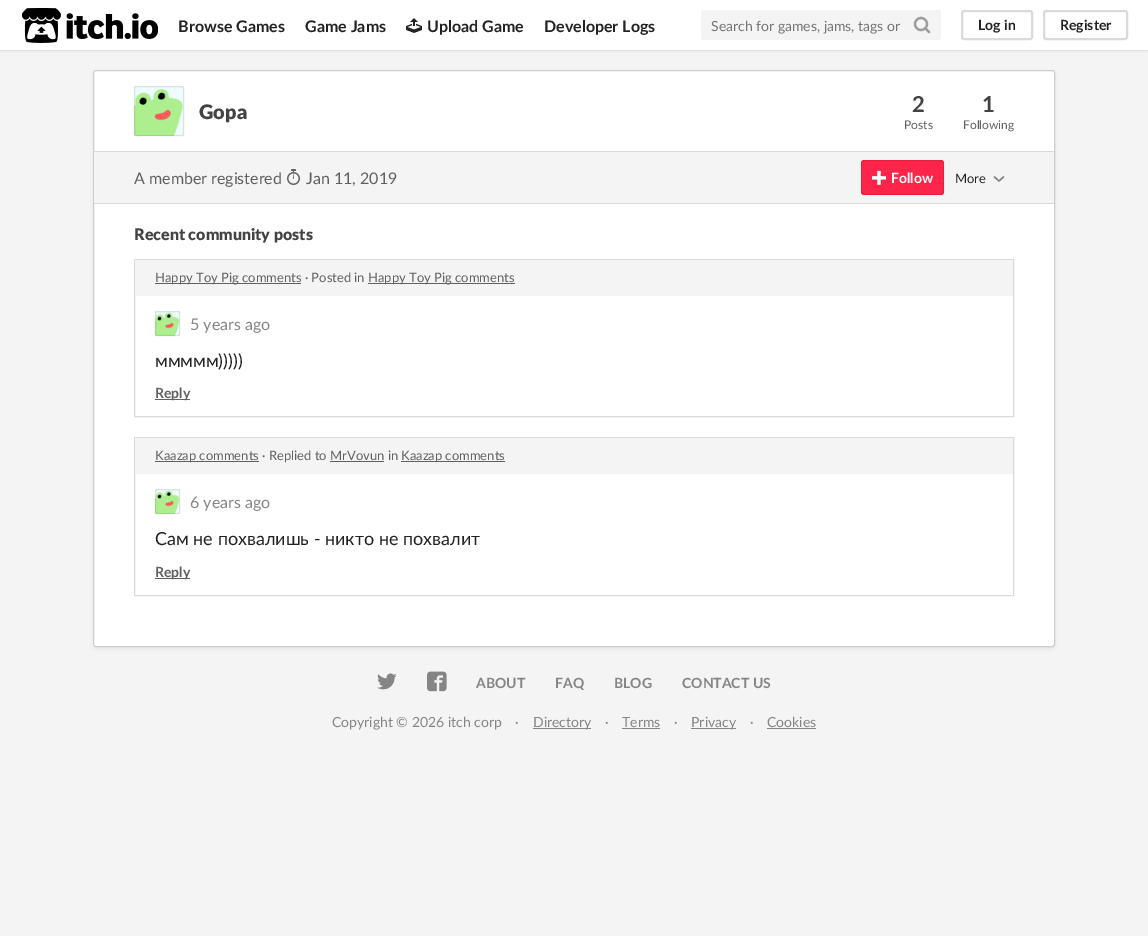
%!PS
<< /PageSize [1148 936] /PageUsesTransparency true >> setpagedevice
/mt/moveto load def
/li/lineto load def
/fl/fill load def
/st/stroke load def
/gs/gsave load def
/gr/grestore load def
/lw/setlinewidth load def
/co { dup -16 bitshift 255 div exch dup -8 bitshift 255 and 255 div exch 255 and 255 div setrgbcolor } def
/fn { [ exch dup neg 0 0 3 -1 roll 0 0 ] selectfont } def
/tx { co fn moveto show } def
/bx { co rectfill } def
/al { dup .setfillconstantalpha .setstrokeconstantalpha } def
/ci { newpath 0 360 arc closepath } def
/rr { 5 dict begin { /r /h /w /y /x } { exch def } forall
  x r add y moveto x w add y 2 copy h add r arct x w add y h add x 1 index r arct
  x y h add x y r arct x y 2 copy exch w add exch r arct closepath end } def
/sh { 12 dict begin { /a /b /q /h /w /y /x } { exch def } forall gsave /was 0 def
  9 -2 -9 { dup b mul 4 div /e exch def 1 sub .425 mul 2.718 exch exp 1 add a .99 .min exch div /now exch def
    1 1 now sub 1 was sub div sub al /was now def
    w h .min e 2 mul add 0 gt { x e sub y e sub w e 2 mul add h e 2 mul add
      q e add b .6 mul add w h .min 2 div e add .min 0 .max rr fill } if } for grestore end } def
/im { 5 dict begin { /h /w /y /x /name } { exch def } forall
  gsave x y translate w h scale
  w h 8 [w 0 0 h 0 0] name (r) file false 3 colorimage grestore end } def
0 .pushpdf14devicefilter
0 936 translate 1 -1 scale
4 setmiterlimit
0 0 1148 936 16#F4F4F4 bx
16#000000 co
0 1 1148 50 0 1 .1 sh
0 0 1148 50 16#FFFFFF bx
(media/1.raw) 22 8 136 35 im
(media/2.raw) 406 18 16 15 im
16#F4F4F4 co
701 10 240 30 3 rr fl
16#9C9C9C co
2.2 lw
921 24 6 ci st
1 setlinecap
1 setlinejoin
929 32 mt 925.5 28.5 li st
16#DADADA co
2 lw
0 setlinecap
0 setlinejoin
962 11 70 28 2 rr st
1044 11 83 28 2 rr st
16#000000 co
93 72 962 577 3 2 .05 sh
16#FFFFFF co
93.5 70.5 961 576 2.5 rr gs fl gr
16#CDCDCD co
1 lw
st
94 151 960 1 16#DADADA bx
(media/3.raw) 134 86 50 50 im
0.1 al
16#000000 co
134.5 86.5 49 49 1.5 rr st
1 al
94 152 960 51 16#F4F4F4 bx
94 203 960 1 16#DADADA bx
(media/4.raw) 287 169 13 16 im
16#FF2449 co
861 160 83 35 3 rr fl
0.1 al
16#000000 co
861.5 160.5 82 34 2.5 rr st
1 al
(media/5.raw) 872 170 14 15 im
16#858585 co
1.5 lw
1 setlinecap
1 setlinejoin
994.5 177 mt 999 181 li 1003.5 177 li st
16#DADADA co
1 lw
0 setlinecap
0 setlinejoin
134.5 259.5 879 157 rectstroke
135 260 878 36 16#F4F4F4 bx
155 283 146 1 16#606060 bx
368 283 147 1 16#606060 bx
(media/6.raw) 155 311 25 25 im
0.1 al
16#000000 co
155.5 311.5 24 24 1.5 rr st
1 al
155 399 35 1 16#606060 bx
16#DADADA co
134.5 437.5 879 158 rectstroke
135 438 878 36 16#F4F4F4 bx
155 461 104 1 16#606060 bx
401 461 104 1 16#606060 bx
330 461 54 1 16#606060 bx
(media/6.raw) 155 489 25 25 im
0.1 al
16#000000 co
155.5 489.5 24 24 1.5 rr st
1 al
155 578 35 1 16#606060 bx
(media/7.raw) 377 673 20 17 im
(media/8.raw) 427 671 20 21 im
533 728 58 1 16#858585 bx
622 728 38 1 16#858585 bx
691 728 45 1 16#858585 bx
767 728 49 1 16#858585 bx
(Browse Games) 178 32 /Lato-Bold 16 16#222222 tx
(Game Jams) 305 32 /Lato-Bold 16 16#222222 tx
(Upload Game) 427 32 /Lato-Bold 16 16#222222 tx
(Developer Logs) 544 32 /Lato-Bold 16 16#222222 tx
(Search for games, jams, tags or) 711 31 /Lato-Regular 14 16#757575 tx
(Log in) 978 30 /Lato-Bold 14 16#222222 tx
(Register) 1060 30 /Lato-Bold 14 16#222222 tx
(Gopa) 199 119 /Lato-Black 20 16#434343 tx
(2) 912 112 /Lato-Bold 22 16#434343 tx
(Posts) 904 129 /Lato-Regular 12 16#606060 tx
(1) 982 112 /Lato-Bold 22 16#434343 tx
(Following) 963 129 /Lato-Regular 12 16#606060 tx
(A member registered) 134 184 /Lato-Regular 16 16#606060 tx
(Jan 11, 2019) 306 184 /Lato-Regular 16 16#606060 tx
(Follow) 891 183 /Lato-Bold 14 16#FFFFFF tx
(More) 955 183 /Lato-Regular 13 16#222222 tx
(Recent community posts) 134 240 /Lato-Black 16 16#434343 tx
(Happy Toy Pig comments · Posted in) 155 282 /Lato-Regular 13 16#606060 tx
(Happy Toy Pig comments) 368 282 /Lato-Regular 13 16#606060 tx
(5 years ago) 190 330 /Lato-Regular 16 16#858585 tx
(ммммм\)\)\)\)\)) 155 367 /Lato-Regular 18 16#222222 tx
(Reply) 155 398 /Lato-Bold 14 16#606060 tx
(Kaazap comments · Replied to MrVovun in) 155 460 /Lato-Regular 13 16#606060 tx
(Kaazap comments) 401 460 /Lato-Regular 13 16#606060 tx
(6 years ago) 190 508 /Lato-Regular 16 16#858585 tx
(Сам не похвалишь - никто не похвалит) 155 545 /Lato-Regular 18 16#222222 tx
(Reply) 155 577 /Lato-Bold 14 16#606060 tx
(ABOUT) 476 688 /Lato-Bold 14 16#858585 tx
(FAQ) 555 688 /Lato-Bold 14 16#858585 tx
(BLOG) 614 688 /Lato-Bold 14 16#858585 tx
(CONTACT US) 682 688 /Lato-Bold 14 16#858585 tx
(Copyright © 2026 itch corp) 332 727 /Lato-Regular 14 16#858585 tx
(·) 515 727 /Lato-Regular 14 16#858585 tx
(Directory) 533 727 /Lato-Regular 14 16#858585 tx
(·) 605 727 /Lato-Regular 14 16#858585 tx
(Terms) 622 727 /Lato-Regular 14 16#858585 tx
(·) 674 727 /Lato-Regular 14 16#858585 tx
(Privacy) 691 727 /Lato-Regular 14 16#858585 tx
(·) 750 727 /Lato-Regular 14 16#858585 tx
(Cookies) 767 727 /Lato-Regular 14 16#858585 tx
.poppdf14devicefilter showpage
